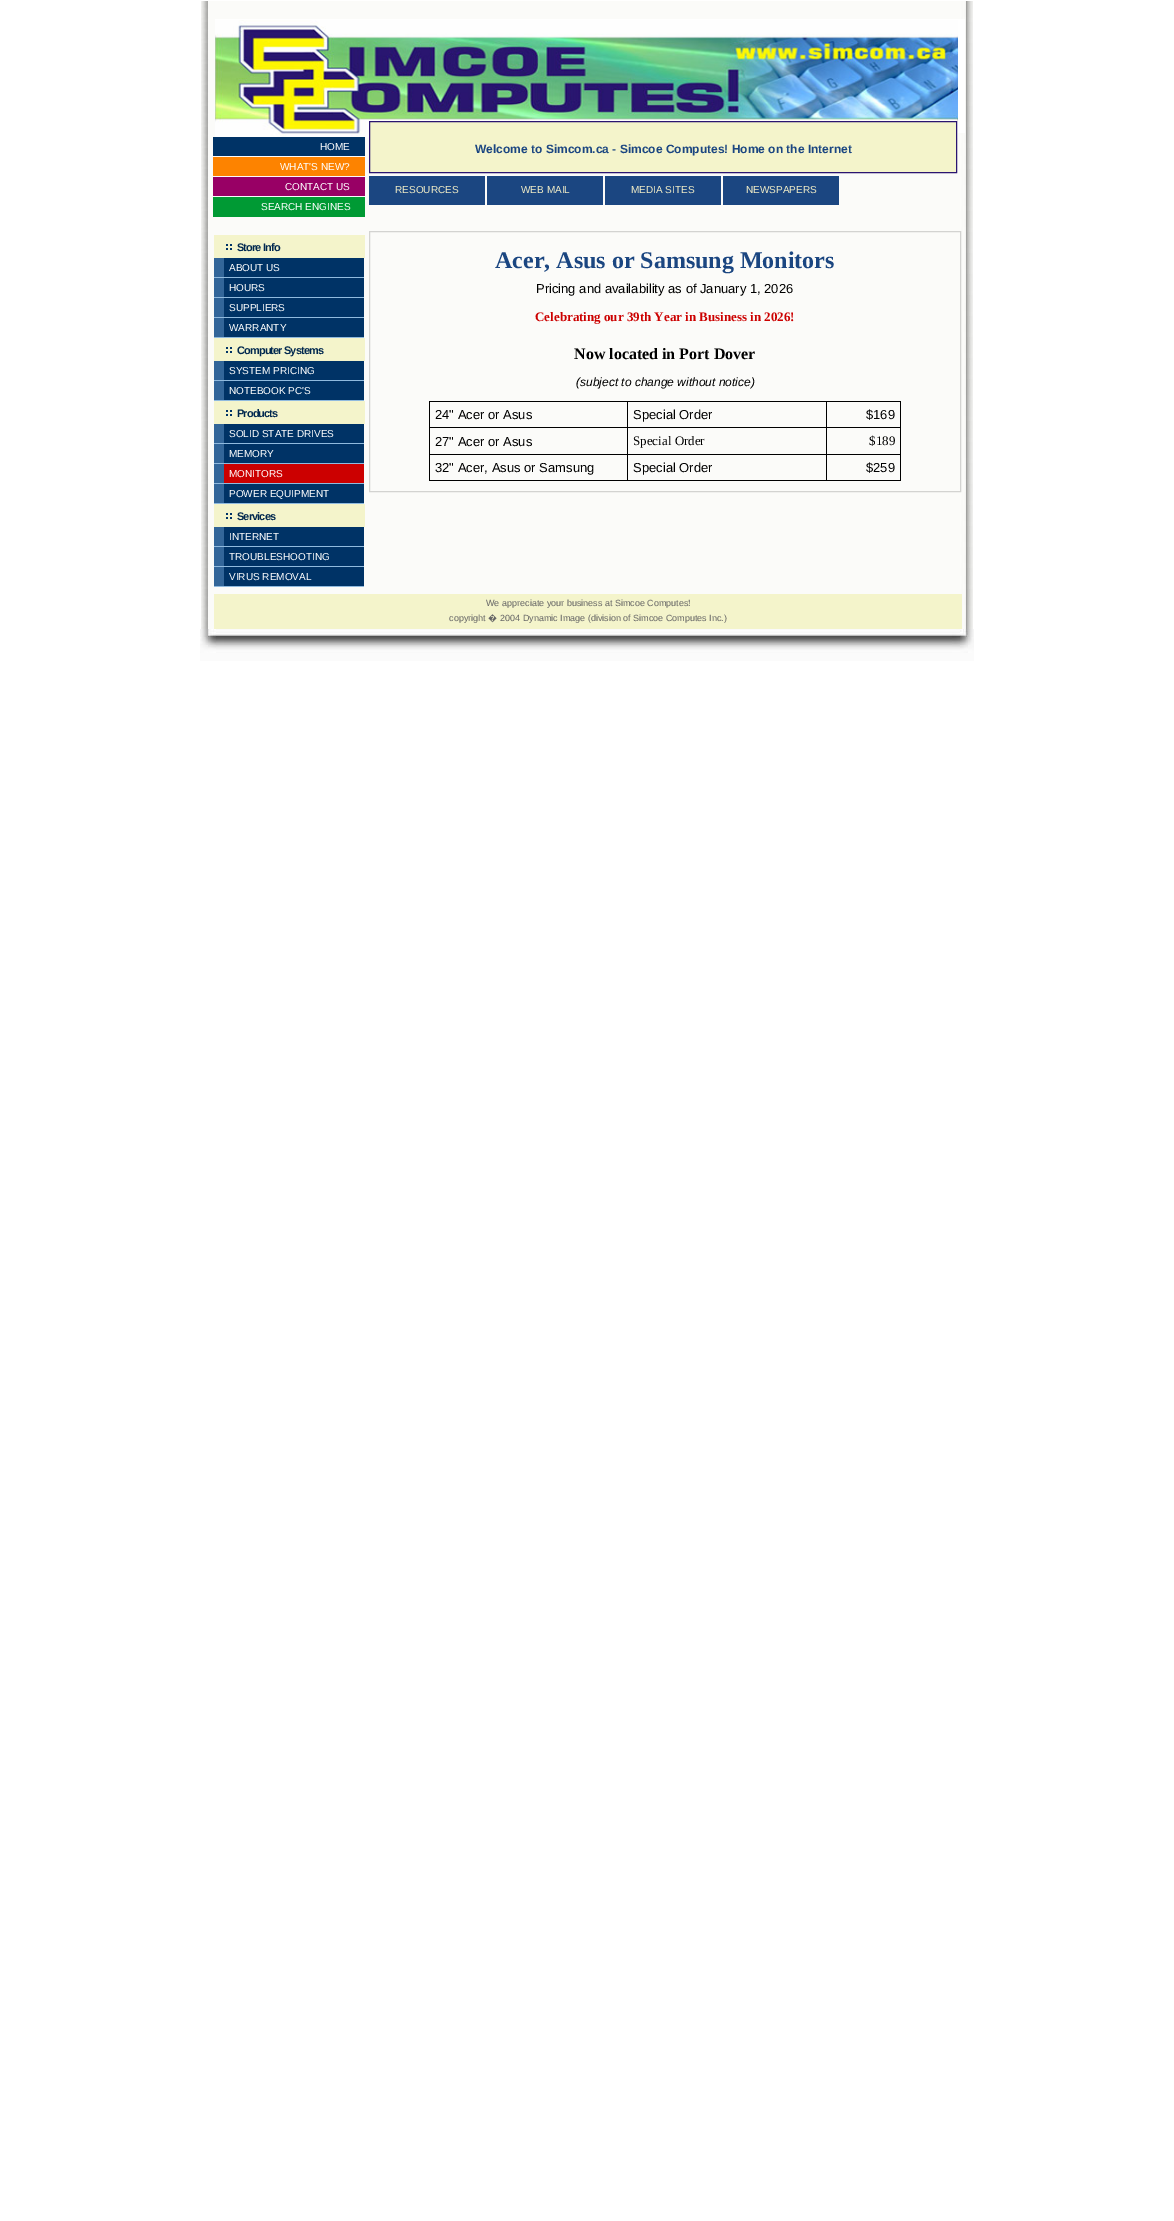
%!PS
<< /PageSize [1174 2221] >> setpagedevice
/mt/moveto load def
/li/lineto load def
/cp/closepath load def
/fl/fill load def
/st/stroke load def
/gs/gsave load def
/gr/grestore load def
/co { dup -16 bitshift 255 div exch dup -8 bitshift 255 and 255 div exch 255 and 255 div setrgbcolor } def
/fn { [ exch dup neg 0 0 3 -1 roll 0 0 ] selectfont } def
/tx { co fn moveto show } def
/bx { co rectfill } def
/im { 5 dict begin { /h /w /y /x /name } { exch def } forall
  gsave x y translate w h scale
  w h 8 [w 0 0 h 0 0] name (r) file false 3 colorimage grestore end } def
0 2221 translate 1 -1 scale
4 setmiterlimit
0 0 1174 2221 16#FFFFFF bx
(media/1.raw) 201 1 772 628 im
215 19 750 114 16#FFFFFF bx
(media/2.raw) 215 20 743 118 im
213 137 152 19 16#003366 bx
213 157 152 19 16#FD8300 bx
213 177 152 19 16#980065 bx
213 197 152 20 16#009A34 bx
16#F4F4CB co
369.5 121.5 mt 956.5 121.5 li 956.5 172.5 li 369.5 172.5 li cp gs fl gr
16#2A1570 co
st
369 176 116 29 16#1B4681 bx
487 176 116 29 16#1B4681 bx
605 176 116 29 16#1B4681 bx
723 176 116 29 16#1B4681 bx
214 277 150 310 16#90BADE bx
214 235 151 23 16#F4F4CB bx
(media/3.raw) 226 244 6 6 im
224 258 140 19 16#003366 bx
214 258 10 19 16#336699 bx
224 278 140 19 16#003366 bx
214 278 10 19 16#336699 bx
224 298 140 19 16#003366 bx
214 298 10 19 16#336699 bx
224 318 140 19 16#003366 bx
214 318 10 19 16#336699 bx
214 338 151 23 16#F4F4CB bx
(media/3.raw) 226 347 6 6 im
224 361 140 19 16#003366 bx
214 361 10 19 16#336699 bx
224 381 140 19 16#003366 bx
214 381 10 19 16#336699 bx
214 401 151 23 16#F4F4CB bx
(media/3.raw) 226 410 6 6 im
224 424 140 19 16#003366 bx
214 424 10 19 16#336699 bx
224 444 140 19 16#003366 bx
214 444 10 19 16#336699 bx
224 464 140 19 16#CC0000 bx
214 464 10 19 16#336699 bx
224 484 140 19 16#003366 bx
214 484 10 19 16#336699 bx
214 504 151 23 16#F4F4CB bx
(media/3.raw) 226 513 6 6 im
224 527 140 19 16#003366 bx
214 527 10 19 16#336699 bx
224 547 140 19 16#003366 bx
214 547 10 19 16#336699 bx
224 567 140 19 16#003366 bx
214 567 10 19 16#336699 bx
16#D3D3D1 co
369.5 231.5 591 260 rectstroke
826 401 75 1 16#000000 bx
826 427 75 1 16#000000 bx
826 454 75 1 16#000000 bx
900 454 1 27 16#000000 bx
826 480 75 1 16#000000 bx
826 454 1 27 16#000000 bx
627 454 200 1 16#000000 bx
826 427 1 28 16#000000 bx
627 427 200 1 16#000000 bx
826 401 1 27 16#000000 bx
627 401 200 1 16#000000 bx
627 480 200 1 16#000000 bx
627 454 1 27 16#000000 bx
429 454 199 1 16#000000 bx
627 427 1 28 16#000000 bx
429 427 199 1 16#000000 bx
627 401 1 27 16#000000 bx
429 401 199 1 16#000000 bx
429 480 199 1 16#000000 bx
429 454 1 27 16#000000 bx
429 427 1 28 16#000000 bx
429 401 1 27 16#000000 bx
900 427 1 28 16#000000 bx
900 401 1 27 16#000000 bx
214 594 748 35 16#F4F4CB bx
(media/4.raw) 200 629 774 32 im
(HOME) 320 150 /LiberationSans-Regular 10 16#FFFFFF tx
(WHAT'S NEW?) 280 170 /LiberationSans-Regular 10 16#FFFFFF tx
(CONTACT US) 285 190 /LiberationSans-Regular 10 16#FFFFFF tx
(SEARCH ENGINES) 261 210 /LiberationSans-Regular 10 16#FFFFFF tx
(Welcome to Simcom.ca - Simcoe Computes! Home on the Internet) 475 153 /LiberationSans-Bold 12 16#1B4681 tx
(RESOURCES) 395 193 /LiberationSans-Regular 10 16#F1EDC7 tx
(WEB MAIL) 521 193 /LiberationSans-Regular 10 16#F1EDC7 tx
(MEDIA SITES) 631 193 /LiberationSans-Regular 10 16#F1EDC7 tx
(NEWSPAPERS) 746 193 /LiberationSans-Regular 10 16#F1EDC7 tx
/LiberationSans-Bold 11 fn
16#01284F co
237 251 mt -.9 0 (Store Info) ashow
(ABOUT US) 229 271 /LiberationSans-Regular 10 16#FFFFFF tx
(HOURS) 229 291 /LiberationSans-Regular 10 16#FFFFFF tx
(SUPPLIERS) 229 311 /LiberationSans-Regular 10 16#FFFFFF tx
(WARRANTY) 229 331 /LiberationSans-Regular 10 16#FFFFFF tx
/LiberationSans-Bold 11 fn
16#01284F co
237 354 mt -.9 0 (Computer Systems) ashow
(SYSTEM PRICING) 229 374 /LiberationSans-Regular 10 16#FFFFFF tx
(NOTEBOOK PC'S) 229 394 /LiberationSans-Regular 10 16#FFFFFF tx
/LiberationSans-Bold 11 fn
16#01284F co
237 417 mt -.9 0 (Products) ashow
(SOLID STATE DRIVES) 229 437 /LiberationSans-Regular 10 16#FFFFFF tx
(MEMORY) 229 457 /LiberationSans-Regular 10 16#FFFFFF tx
(MONITORS) 229 477 /LiberationSans-Regular 10 16#FFFFFF tx
(POWER EQUIPMENT) 229 497 /LiberationSans-Regular 10 16#FFFFFF tx
/LiberationSans-Bold 11 fn
16#01284F co
237 520 mt -.9 0 (Services) ashow
(INTERNET) 229 540 /LiberationSans-Regular 10 16#FFFFFF tx
(TROUBLESHOOTING) 229 560 /LiberationSans-Regular 10 16#FFFFFF tx
(VIRUS REMOVAL) 229 580 /LiberationSans-Regular 10 16#FFFFFF tx
(Acer, Asus or Samsung Monitors) 495 268 /LiberationSerif-Bold 24 16#1B4681 tx
(Pricing and availability as of January 1, 2026) 536 293 /LiberationSans-Regular 13 16#000000 tx
(Celebrating our 39th Year in Business in 2026!) 535 321 /LiberationSerif-Bold 13 16#CC0000 tx
(Now located in Port Dover) 574 359 /LiberationSerif-Bold 16 16#000000 tx
(\(subject to change without notice\)) 576 386 /LiberationSans-Italic 12 16#000000 tx
(24" Acer or Asus) 435 419 /LiberationSans-Regular 13 16#000000 tx
(Special Order) 633 419 /LiberationSans-Regular 13 16#000000 tx
($169) 866 419 /LiberationSans-Regular 13 16#000000 tx
(27" Acer or Asus) 435 446 /LiberationSans-Regular 13 16#000000 tx
(Special Order) 633 445 /LiberationSerif-Regular 13 16#000000 tx
($189) 869 445 /LiberationSerif-Regular 13 16#000000 tx
(32" Acer, Asus or Samsung) 435 472 /LiberationSans-Regular 13 16#000000 tx
(Special Order) 633 472 /LiberationSans-Regular 13 16#000000 tx
($259) 866 472 /LiberationSans-Regular 13 16#000000 tx
(We appreciate your business at Simcoe Computes!) 486 606 /LiberationSans-Regular 9 16#666666 tx
(copyright) 449 621 /LiberationSans-Regular 9 16#666666 tx
(�) 488 621 /NotoSans-Regular 9 16#666666 tx
(2004 Dynamic Image \(division of Simcoe Computes Inc.\)) 500 621 /LiberationSans-Regular 9 16#666666 tx
showpage
